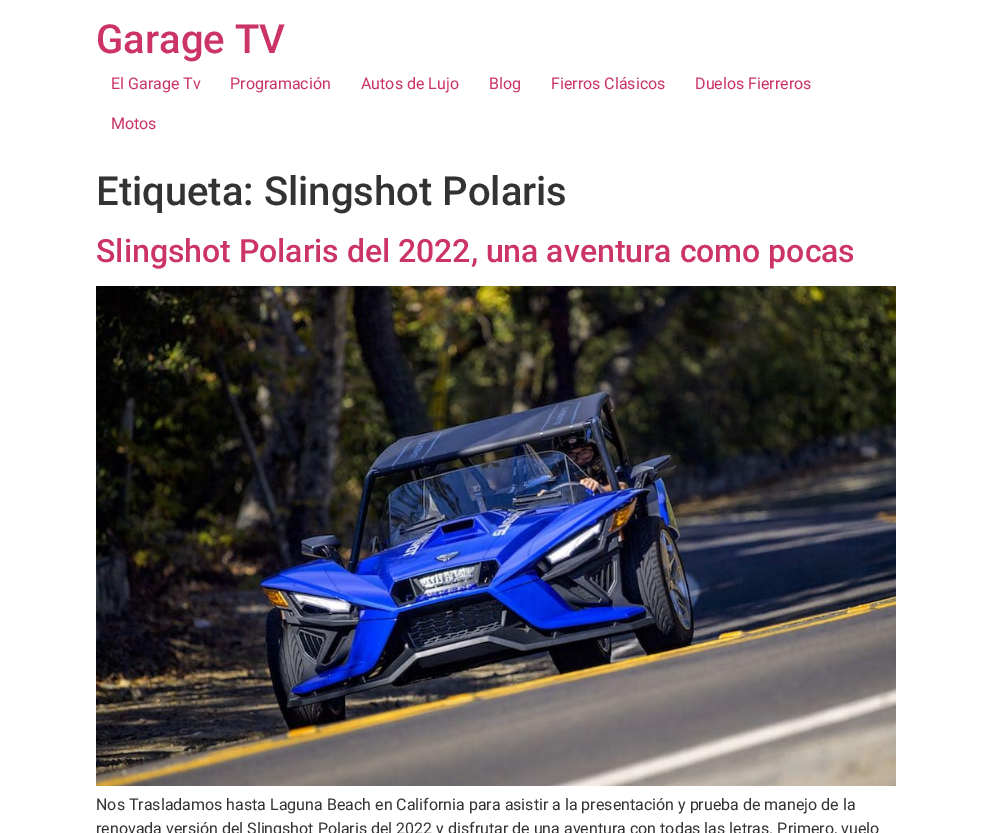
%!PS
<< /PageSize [992 833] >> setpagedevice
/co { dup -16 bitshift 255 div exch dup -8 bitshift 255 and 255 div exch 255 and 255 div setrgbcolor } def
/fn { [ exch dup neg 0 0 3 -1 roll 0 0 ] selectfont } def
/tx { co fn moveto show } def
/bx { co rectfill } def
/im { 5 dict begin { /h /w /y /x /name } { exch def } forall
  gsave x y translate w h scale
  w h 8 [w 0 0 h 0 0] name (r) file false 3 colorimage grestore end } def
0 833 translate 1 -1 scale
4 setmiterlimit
0 0 992 833 16#FFFFFF bx
(media/1.raw) 96 286 800 500 im
(Garage TV) 96 53 /Roboto-Medium 40 16#CC3366 tx
(El Garage Tv) 111 89 /Roboto-Regular 16 16#CC3366 tx
(Programación) 230 89 /Roboto-Regular 16 16#CC3366 tx
(Autos de Lujo) 361 89 /Roboto-Regular 16 16#CC3366 tx
(Blog) 489 89 /Roboto-Regular 16 16#CC3366 tx
(Fierros Clásicos) 551 89 /Roboto-Regular 16 16#CC3366 tx
(Duelos Fierreros) 695 89 /Roboto-Regular 16 16#CC3366 tx
(Motos) 111 129 /Roboto-Regular 16 16#CC3366 tx
(Etiqueta: Slingshot Polaris) 96 205 /Roboto-Medium 40 16#333333 tx
(Slingshot Polaris del 2022, una aventura como pocas) 96 262 /Roboto-Medium 32 16#CC3366 tx
(Nos Trasladamos hasta Laguna Beach en California para asistir a la presentación y prueba de manejo de la) 96 810 /Roboto-Regular 16 16#333333 tx
(renovada versión del Slingshot Polaris del 2022 y disfrutar de una aventura con todas las letras. Primero, vuelo) 96 834 /Roboto-Regular 16 16#333333 tx
showpage
